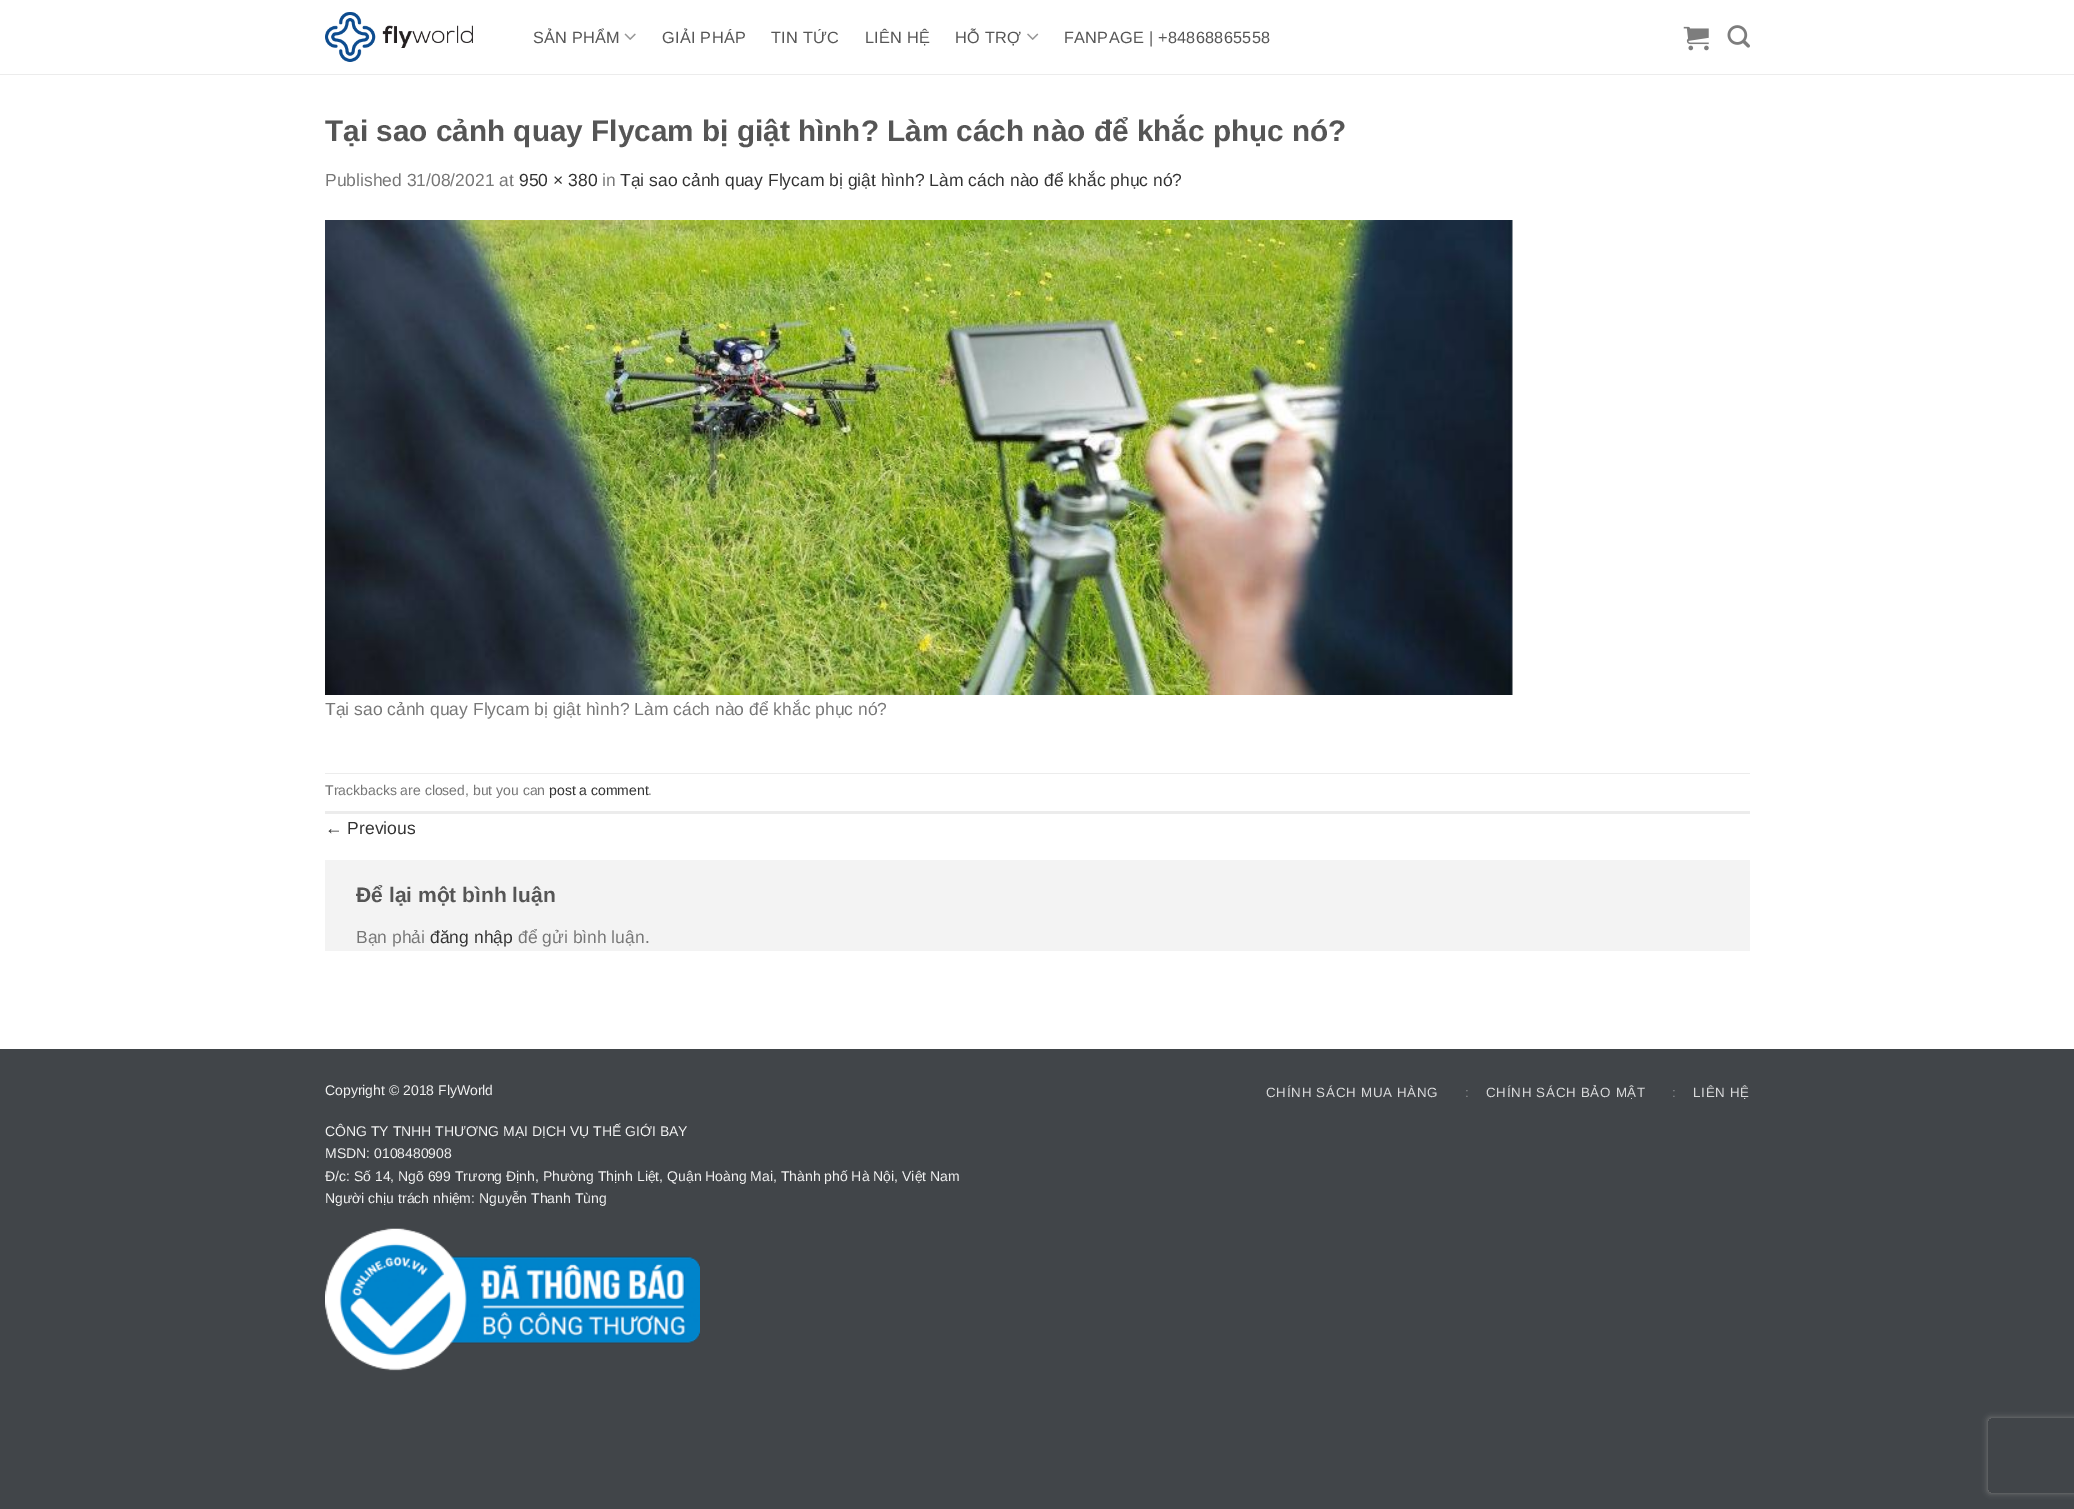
%!PS
<< /PageSize [2074 1509] /PageUsesTransparency true >> setpagedevice
/mt/moveto load def
/li/lineto load def
/ct/curveto load def
/cp/closepath load def
/gs/gsave load def
/gr/grestore load def
/co { dup -16 bitshift 255 div exch dup -8 bitshift 255 and 255 div exch 255 and 255 div setrgbcolor } def
/fn { [ exch dup neg 0 0 3 -1 roll 0 0 ] selectfont } def
/tx { co fn moveto show } def
/bx { co rectfill } def
/al { dup .setfillconstantalpha .setstrokeconstantalpha } def
/rr { 5 dict begin { /r /h /w /y /x } { exch def } forall
  x r add y moveto x w add y 2 copy h add r arct x w add y h add x 1 index r arct
  x y h add x y r arct x y 2 copy exch w add exch r arct closepath end } def
/sh { 12 dict begin { /a /b /q /h /w /y /x } { exch def } forall gsave /was 0 def
  9 -2 -9 { dup b mul 4 div /e exch def 1 sub .425 mul 2.718 exch exp 1 add a .99 .min exch div /now exch def
    1 1 now sub 1 was sub div sub al /was now def
    w h .min e 2 mul add 0 gt { x e sub y e sub w e 2 mul add h e 2 mul add
      q e add b .6 mul add w h .min 2 div e add .min 0 .max rr fill } if } for grestore end } def
/im { 5 dict begin { /h /w /y /x /name } { exch def } forall
  gsave x y translate w h scale
  w h 8 [w 0 0 h 0 0] name (r) file false 3 colorimage grestore end } def
0 .pushpdf14devicefilter
0 1509 translate 1 -1 scale
4 setmiterlimit
0 0 2074 1509 16#414549 bx
0 0 2074 1049 16#FFFFFF bx
0 74 2074 1 16#ECECEC bx
(media/1.raw) 325 12 148 50 im
(media/2.raw) 624 33 12 7 im
(media/3.raw) 1027 33 12 7 im
(media/4.raw) 1683 26 26 25 im
(media/5.raw) 1727 25 23 23 im
(media/6.raw) 325 220 1188 475 im
325 773 1425 1 16#ECECEC bx
325 811 1425 3 16#ECECEC bx
325 860 1425 91 16#F3F3F3 bx
(media/7.raw) 325 1228 375 143 im
gs
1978 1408 mt 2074 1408 li 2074 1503 li 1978 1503 li cp 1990.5 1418 mt 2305.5 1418 li 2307 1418 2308 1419 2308 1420.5 ct 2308 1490.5 li 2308 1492 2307 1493 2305.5 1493 ct 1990.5 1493 li 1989 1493 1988 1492 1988 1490.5 ct 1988 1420.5 li 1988 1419 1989 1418 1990.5 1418 ct cp eoclip newpath
16#808080 co
1988 1418 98 75 2.5 3 1 sh
gr
/LiberationSans-Regular 16.25 fn
16#555555 co
533 43 mt .3 0 (SẢN PHẨM) ashow
662 43 mt .3 0 (GIẢI PHÁP) ashow
771 43 mt .3 0 (TIN TỨC) ashow
865 43 mt .3 0 (LIÊN HỆ) ashow
955 43 mt .3 0 (HỖ TRỢ) ashow
1064 43 mt .3 0 (FANPAGE | +84868865558) ashow
(Tại sao cảnh quay Flycam bị giật hình? Làm cách nào để khắc phục nó?) 325 141 /LiberationSans-Bold 29.75 16#555555 tx
(Published 31/08/2021 at) 325 186 /LiberationSans-Regular 17.5 16#777777 tx
(950 × 380) 519 186 /LiberationSans-Regular 17.5 16#333333 tx
(in) 602 186 /LiberationSans-Regular 17.5 16#777777 tx
(Tại sao cảnh quay Flycam bị giật hình? Làm cách nào để khắc phục nó?) 620 186 /LiberationSans-Regular 17.5 16#333333 tx
(Tại sao cảnh quay Flycam bị giật hình? Làm cách nào để khắc phục nó?) 325 715 /LiberationSans-Regular 17.5 16#777777 tx
(Trackbacks are closed, but you can) 325 795 /LiberationSans-Regular 14 16#777777 tx
(post a comment) 549 795 /LiberationSans-Regular 14 16#333333 tx
(.) 648 795 /LiberationSans-Regular 14 16#777777 tx
(← Previous) 325 834 /LiberationSans-Regular 17.5 16#333333 tx
(Để lại một bình luận) 356 902 /LiberationSans-Bold 21 16#555555 tx
(Bạn phải) 356 943 /LiberationSans-Regular 17.5 16#777777 tx
(đăng nhập) 430 943 /LiberationSans-Regular 17.5 16#333333 tx
(để gửi bình luận.) 518 943 /LiberationSans-Regular 17.5 16#777777 tx
(Copyright © 2018 FlyWorld) 325 1095 /LiberationSans-Regular 14 16#F1F1F1 tx
(CÔNG TY TNHH THƯƠNG MẠI DỊCH VỤ THẾ GIỚI BAY) 325 1136 /LiberationSans-Regular 14 16#F1F1F1 tx
(MSDN: 0108480908) 325 1158 /LiberationSans-Regular 14 16#F1F1F1 tx
(Đ/c: Số 14, Ngõ 699 Trương Định, Phường Thịnh Liệt, Quận Hoàng Mai, Thành phố Hà Nội, Việt Nam) 325 1181 /LiberationSans-Regular 14 16#F1F1F1 tx
(Người chịu trách nhiệm: Nguyễn Thanh Tùng) 325 1203 /LiberationSans-Regular 14 16#F1F1F1 tx
/LiberationSans-Regular 13.4 fn
16#D9DADB co
1266 1097 mt .7 0 (CHÍNH SÁCH MUA HÀNG) ashow
16#8D9092 co
1465 1097 mt .7 0 (:) ashow
16#D9DADB co
1486 1097 mt .7 0 (CHÍNH SÁCH BẢO MẬT) ashow
16#8D9092 co
1672 1097 mt .7 0 (:) ashow
16#D9DADB co
1693 1097 mt .7 0 (LIÊN HỆ) ashow
.poppdf14devicefilter showpage
